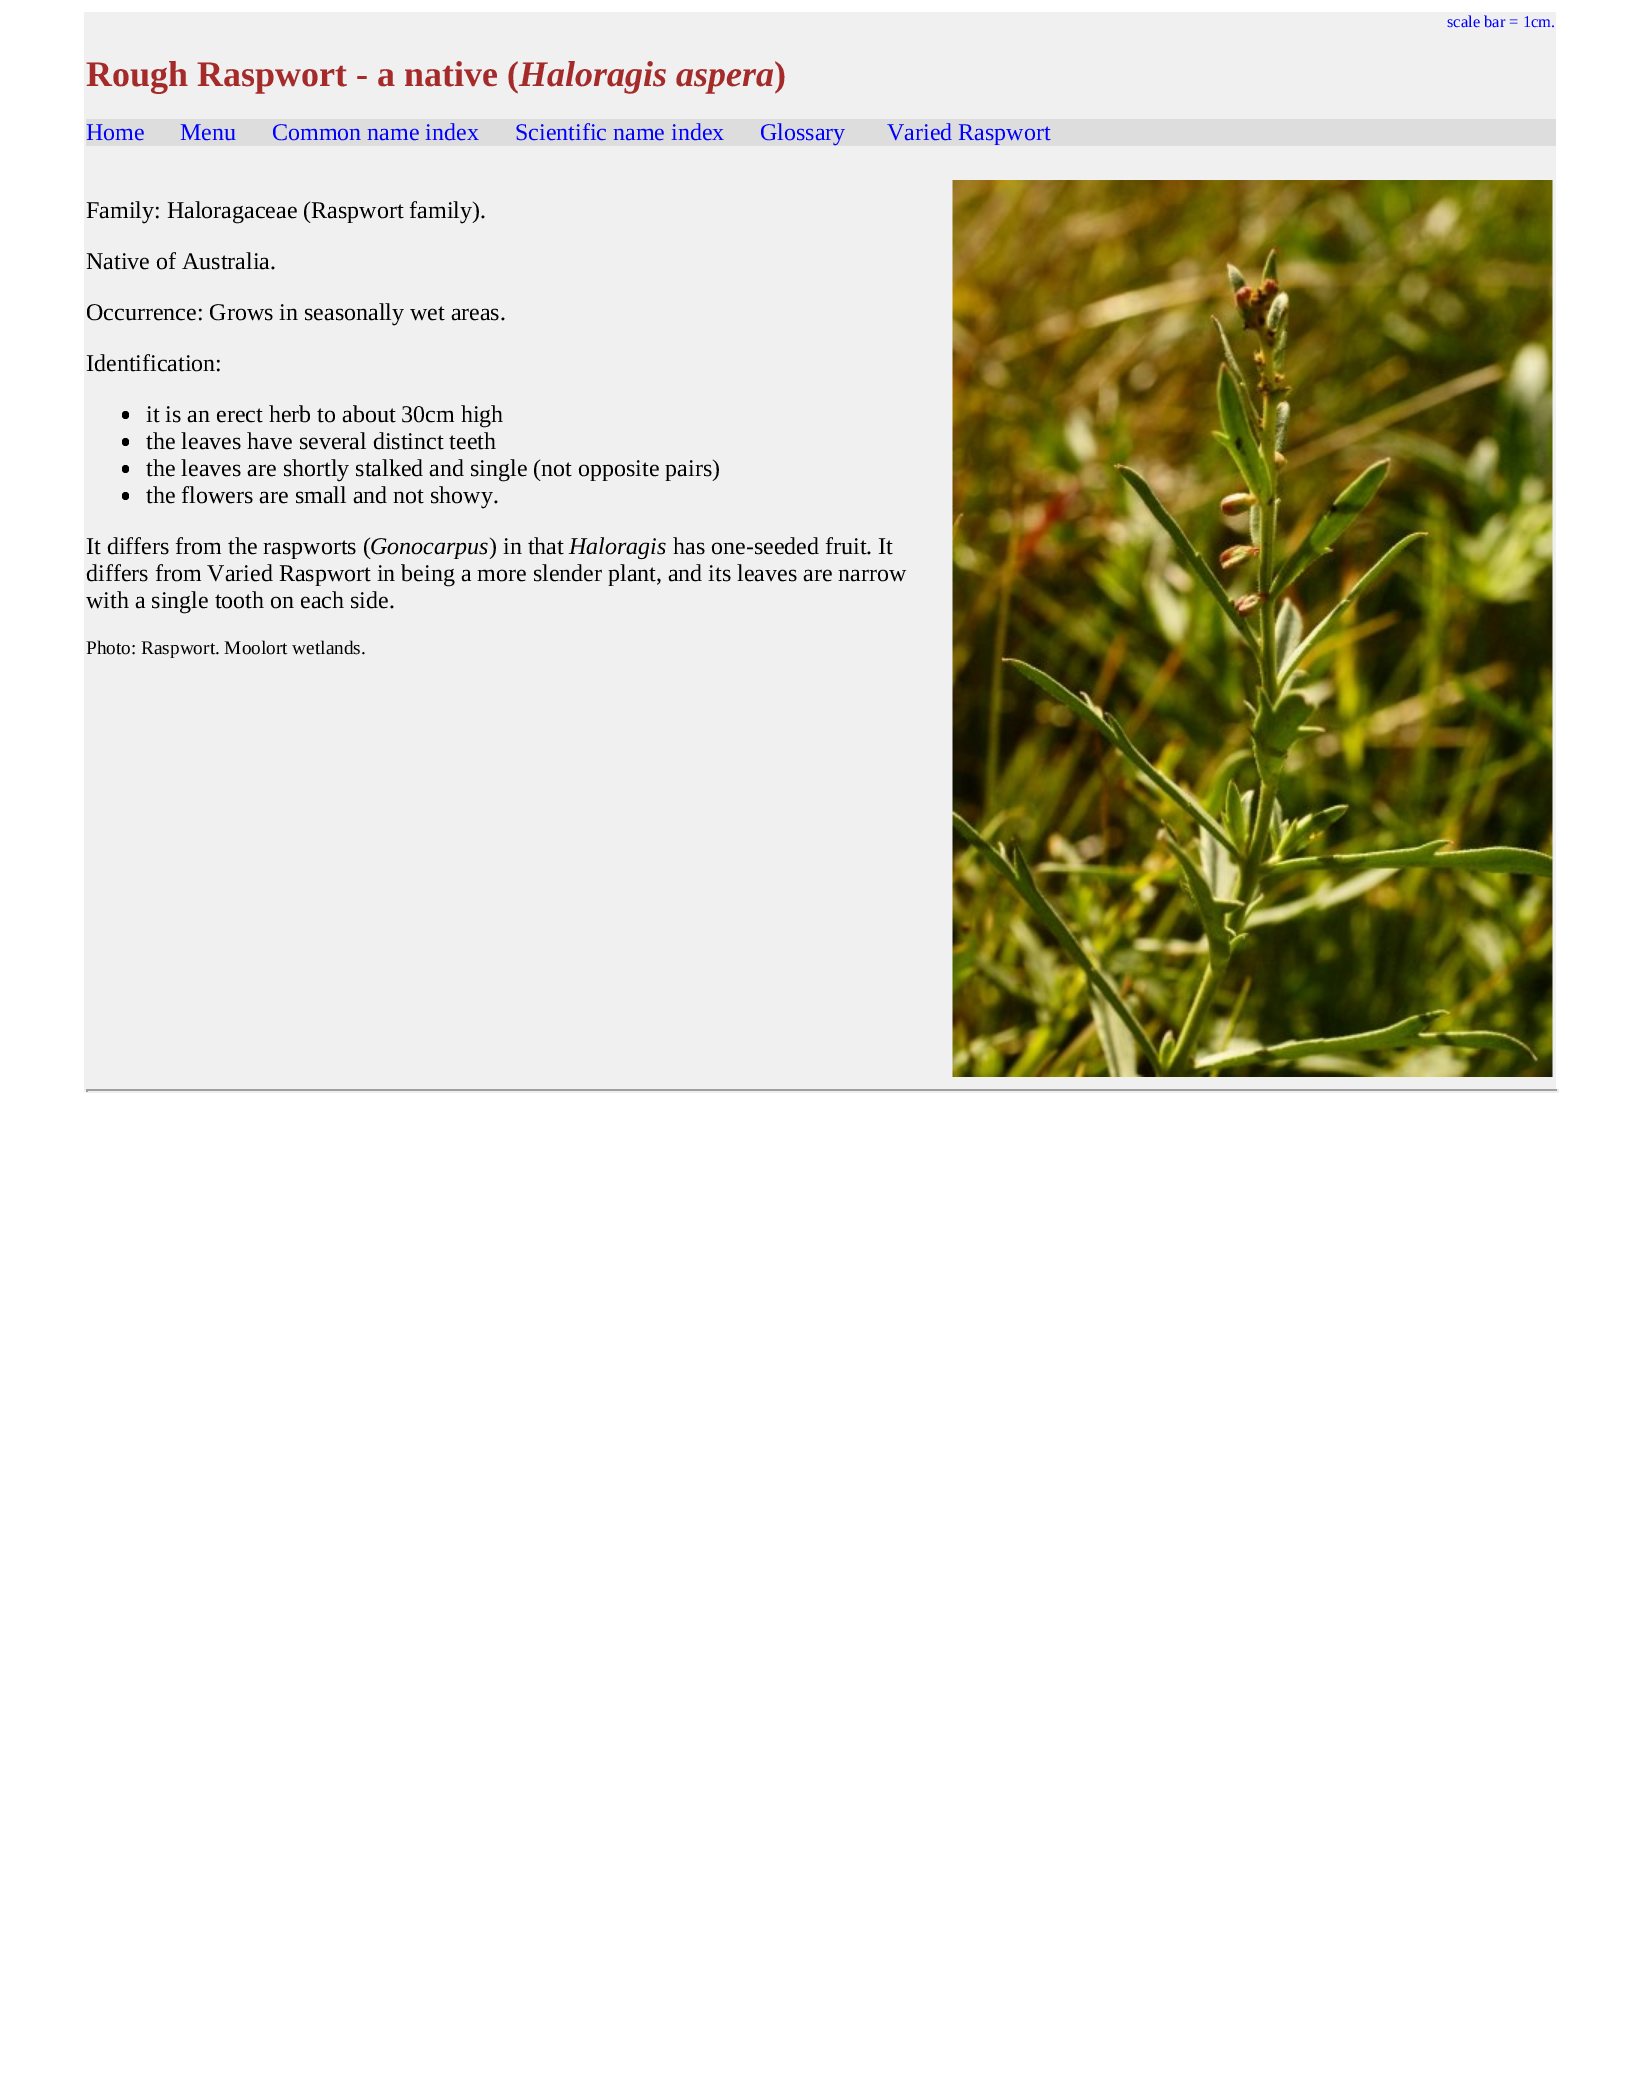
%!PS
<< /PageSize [1639 2080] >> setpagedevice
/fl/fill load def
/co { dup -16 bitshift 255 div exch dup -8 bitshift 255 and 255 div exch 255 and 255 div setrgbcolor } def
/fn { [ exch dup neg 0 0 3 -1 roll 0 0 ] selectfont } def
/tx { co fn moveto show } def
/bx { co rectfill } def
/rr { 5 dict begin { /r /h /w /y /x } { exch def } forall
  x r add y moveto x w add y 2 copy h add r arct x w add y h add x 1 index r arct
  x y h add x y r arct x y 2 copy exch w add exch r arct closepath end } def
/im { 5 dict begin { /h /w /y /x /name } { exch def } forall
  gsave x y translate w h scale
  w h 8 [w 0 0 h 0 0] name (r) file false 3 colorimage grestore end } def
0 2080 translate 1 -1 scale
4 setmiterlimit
0 0 1639 2080 16#FFFFFF bx
84 12 1472 1080 16#F0F0F0 bx
86 119 1470 27 16#DDDDDD bx
(media/1.raw) 952 180 601 897 im
16#000000 co
122 411 7 8 3.5 rr fl
122 438 7 8 3.5 rr fl
122 465 7 8 3.5 rr fl
122 492 7 8 3.5 rr fl
86 1089 1473 2 16#9F9F9F bx
1557 1089 2 3 16#EEEEEE bx
86 1091 1473 2 16#EEEEEE bx
86 1089 2 3 16#9F9F9F bx
(scale bar = 1cm.) 1447 27 /LiberationSerif-Regular 16.5 16#0000FF tx
(Rough Raspwort - a native \() 86 86 /LiberationSerif-Bold 36 16#A52A2A tx
(Haloragis aspera) 519 86 /LiberationSerif-BoldItalic 36 16#A52A2A tx
(\)) 774 86 /LiberationSerif-Bold 36 16#A52A2A tx
(Home) 86 140 /LiberationSerif-Regular 24 16#0000FF tx
(Menu) 180 140 /LiberationSerif-Regular 24 16#0000FF tx
(Common name index) 272 140 /LiberationSerif-Regular 24 16#0000FF tx
(Scientific name index) 515 140 /LiberationSerif-Regular 24 16#0000FF tx
(Glossary) 760 140 /LiberationSerif-Regular 24 16#0000FF tx
(Varied Raspwort) 887 140 /LiberationSerif-Regular 24 16#0000FF tx
(Family: Haloragaceae \(Raspwort family\).) 86 218 /LiberationSerif-Regular 24 16#000000 tx
(Native of Australia.) 86 269 /LiberationSerif-Regular 24 16#000000 tx
(Occurrence: Grows in seasonally wet areas.) 86 320 /LiberationSerif-Regular 24 16#000000 tx
(Identification:) 86 371 /LiberationSerif-Regular 24 16#000000 tx
(it is an erect herb to about 30cm high) 146 422 /LiberationSerif-Regular 24 16#000000 tx
(the leaves have several distinct teeth) 146 449 /LiberationSerif-Regular 24 16#000000 tx
(the leaves are shortly stalked and single \(not opposite pairs\)) 146 476 /LiberationSerif-Regular 24 16#000000 tx
(the flowers are small and not showy.) 146 503 /LiberationSerif-Regular 24 16#000000 tx
(It differs from the raspworts \() 86 554 /LiberationSerif-Regular 24 16#000000 tx
(Gonocarpus) 370 554 /LiberationSerif-Italic 24 16#000000 tx
(\) in that) 489 554 /LiberationSerif-Regular 24 16#000000 tx
(Haloragis) 569 554 /LiberationSerif-Italic 24 16#000000 tx
(has one-seeded fruit. It) 673 554 /LiberationSerif-Regular 24 16#000000 tx
(differs from Varied Raspwort in being a more slender plant, and its leaves are narrow) 86 581 /LiberationSerif-Regular 24 16#000000 tx
(with a single tooth on each side.) 86 608 /LiberationSerif-Regular 24 16#000000 tx
(Photo: Raspwort. Moolort wetlands.) 86 654 /LiberationSerif-Regular 19.25 16#000000 tx
showpage
